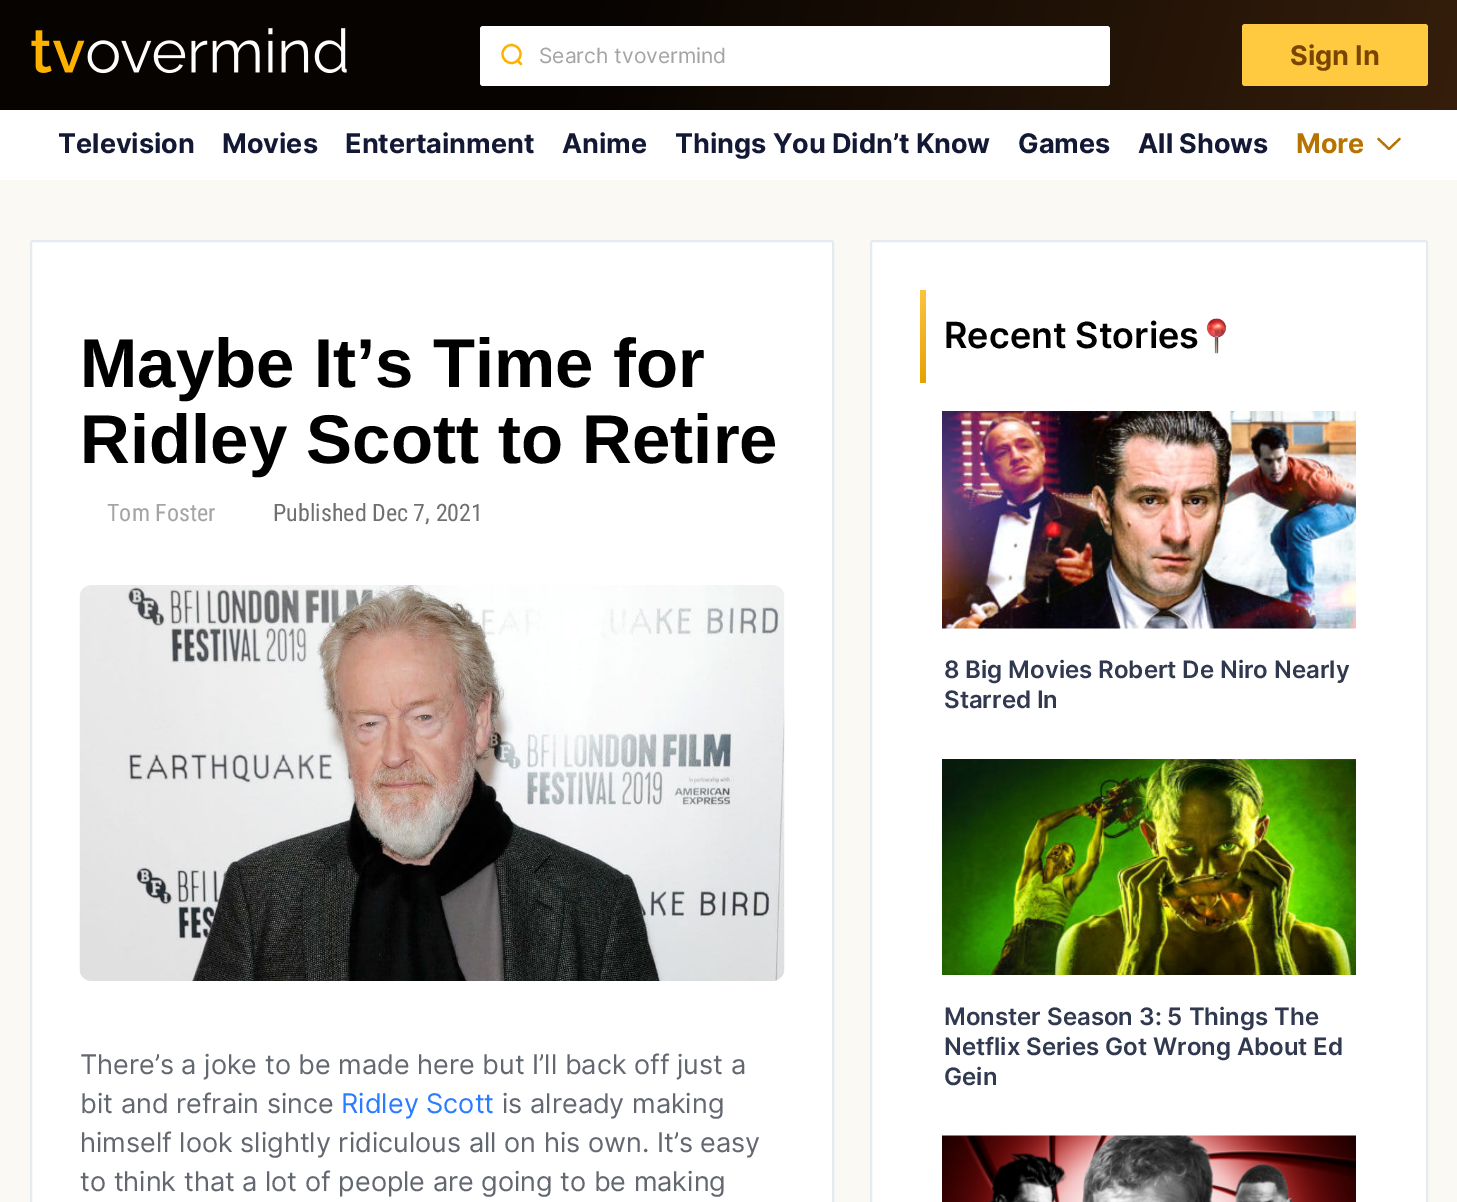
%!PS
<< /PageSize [1457 1202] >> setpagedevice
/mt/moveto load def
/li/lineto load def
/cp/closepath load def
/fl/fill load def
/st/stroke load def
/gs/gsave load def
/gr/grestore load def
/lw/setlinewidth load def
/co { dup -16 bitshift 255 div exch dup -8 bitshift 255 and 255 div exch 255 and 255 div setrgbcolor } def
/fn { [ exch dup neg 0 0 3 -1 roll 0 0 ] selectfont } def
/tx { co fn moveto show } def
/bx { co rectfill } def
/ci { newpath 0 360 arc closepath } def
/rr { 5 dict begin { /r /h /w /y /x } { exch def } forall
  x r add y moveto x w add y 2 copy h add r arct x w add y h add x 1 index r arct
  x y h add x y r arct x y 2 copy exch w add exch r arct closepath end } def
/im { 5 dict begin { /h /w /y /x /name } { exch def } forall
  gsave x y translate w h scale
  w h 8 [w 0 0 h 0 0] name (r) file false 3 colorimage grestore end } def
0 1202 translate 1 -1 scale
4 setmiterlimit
0 0 1457 1202 16#FFFFFF bx
gs 0 0 mt 1457 0 li 1457 110 li 0 110 li cp clip newpath
<< /ShadingType 2 /ColorSpace /DeviceRGB /Coords [41 -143 1417 252] /Extend [true true] /Function << /FunctionType 3 /Domain [0 1] /Functions [<< /FunctionType 2 /Domain [0 1] /C0 [.024 .012 .004] /C1 [.024 .012 .004] /N 1 >> << /FunctionType 2 /Domain [0 1] /C0 [.024 .012 .004] /C1 [.208 .118 .043] /N 1 >>] /Bounds [.39] /Encode [0 1 0 1] >> >> shfill gr
(media/1.raw) 31 28 316 46 im
480 26 630 60 3 rr fl
16#FFB100 co
2.2 lw
511.5 54 9 ci st
1 setlinecap
1 setlinejoin
517.5 60.5 mt 521 64 li st
16#FFCA3F co
1242 24 186 62 3 rr fl
16#B77300 co
1399.5 139 mt 1389 149 li 1378.5 139 li st
0 180 1457 1022 16#FBF9F3 bx
16#FFFFFF co
31 241 802 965 2 rr gs fl gr
16#E5EAF0 co
2 lw
0 setlinecap
0 setlinejoin
st
(media/2.raw) 79 585 706 396 im
16#FFFFFF co
871 241 556 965 2 rr gs fl gr
16#E5EAF0 co
st
(media/3.raw) 1207 318 20 36 im
gs 920 290 mt 926 290 li 926 383 li 920 383 li cp clip newpath
<< /ShadingType 2 /ColorSpace /DeviceRGB /Coords [898 311 947 361] /Extend [true true] /Function << /FunctionType 2 /Domain [0 1] /C0 [.992 .773 .267] /C1 [.906 .627 0] /N 1 >> >> shfill gr
(media/4.raw) 942 411 414 218 im
(media/5.raw) 942 759 414 216 im
(media/6.raw) 942 1135 414 67 im
(Search tvovermind) 539 63 /Inter-Regular 21 16#A4A4A4 tx
(Sign In) 1290 65 /Inter-Bold 27 16#7A4500 tx
(Television) 58 153 /Inter-Bold 27 16#131935 tx
(Movies) 222 153 /Inter-Bold 27 16#131935 tx
(Entertainment) 345 153 /Inter-Bold 27 16#131935 tx
(Anime) 562 153 /Inter-Bold 27 16#131935 tx
(Things You Didn’t Know) 675 153 /Inter-Bold 27 16#131935 tx
(Games) 1018 153 /Inter-Bold 27 16#131935 tx
(All Shows) 1138 153 /Inter-Bold 27 16#131935 tx
(More) 1296 153 /Inter-Bold 27 16#B77300 tx
(Maybe It’s Time for) 80 387 /LiberationSans-Bold 69 16#000000 tx
(Ridley Scott to Retire) 80 463 /LiberationSans-Bold 69 16#000000 tx
(Tom Foster) 107 521 /RobotoCondensed-Regular 24 16#A4A4A4 tx
(Published Dec 7, 2021) 273 521 /RobotoCondensed-Regular 24 16#707070 tx
(There’s a joke to be made here but I’ll back off just a) 80 1074 /Inter-Regular 27 16#636770 tx
(bit and refrain since) 80 1113 /Inter-Regular 27 16#636770 tx
(Ridley Scott) 341 1113 /Inter-Regular 27 16#297BFF tx
(is already making) 502 1113 /Inter-Regular 27 16#636770 tx
(himself look slightly ridiculous all on his own. It’s easy) 80 1152 /Inter-Regular 27 16#636770 tx
(to think that a lot of people are going to be making) 80 1191 /Inter-Regular 27 16#636770 tx
(Recent Stories) 944 348 /Inter-SemiBold 36 16#000000 tx
(8 Big Movies Robert De Niro Nearly) 944 678 /Inter-SemiBold 24 16#313950 tx
(Starred In) 944 708 /Inter-SemiBold 24 16#313950 tx
(Monster Season 3: 5 Things The) 944 1025 /Inter-SemiBold 24 16#313950 tx
(Netflix Series Got Wrong About Ed) 944 1055 /Inter-SemiBold 24 16#313950 tx
(Gein) 944 1085 /Inter-SemiBold 24 16#313950 tx
showpage
